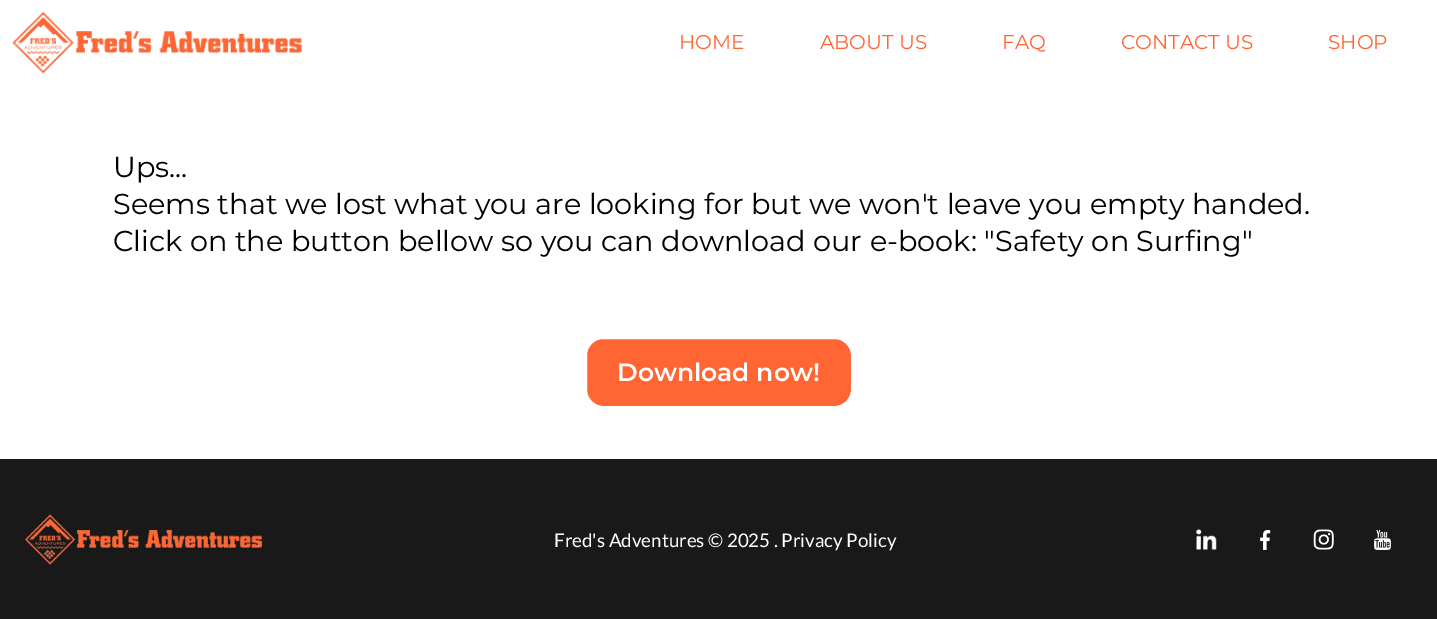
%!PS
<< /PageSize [1437 619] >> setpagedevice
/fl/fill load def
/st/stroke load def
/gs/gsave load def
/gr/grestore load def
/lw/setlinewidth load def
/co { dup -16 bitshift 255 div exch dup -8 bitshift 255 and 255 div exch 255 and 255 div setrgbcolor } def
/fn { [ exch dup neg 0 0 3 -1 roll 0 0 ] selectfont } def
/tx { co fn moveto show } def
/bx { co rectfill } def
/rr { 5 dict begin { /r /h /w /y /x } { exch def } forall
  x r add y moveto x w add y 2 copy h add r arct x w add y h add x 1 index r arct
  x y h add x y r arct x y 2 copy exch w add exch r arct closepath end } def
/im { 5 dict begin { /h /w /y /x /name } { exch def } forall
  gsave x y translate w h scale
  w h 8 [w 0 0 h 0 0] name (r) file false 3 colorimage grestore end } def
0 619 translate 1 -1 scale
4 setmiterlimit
0 0 1437 619 16#FFFFFF bx
(media/1.raw) 12 12 290 62 im
16#FF6633 co
585.5 337.5 267 70 17.5 rr gs fl gr
16#FFFFFF co
3 lw
st
0 459 1437 160 16#191919 bx
(media/2.raw) 25 514 238 51 im
(media/3.raw) 1196 529 21 21 im
(media/4.raw) 1260 530 11 20 im
(media/5.raw) 1313 529 21 21 im
(media/6.raw) 1374 530 17 20 im
(HOME) 679 49 /Montserrat-Regular 20 16#FF6633 tx
(ABOUT US) 820 49 /Montserrat-Regular 20 16#FF6633 tx
(FAQ) 1002 49 /Montserrat-Regular 20 16#FF6633 tx
(CONTACT US) 1121 49 /Montserrat-Regular 20 16#FF6633 tx
(SHOP) 1328 49 /Montserrat-Regular 20 16#FF6633 tx
(Ups...) 113 177 /Montserrat-Regular 28.75 16#000000 tx
(Seems that we lost what you are looking for but we won't leave you empty handed.) 113 214 /Montserrat-Regular 28.75 16#000000 tx
(Click on the button bellow so you can download our e-book: "Safety on Surfing") 113 251 /Montserrat-Regular 28.75 16#000000 tx
(Download now!) 617 381 /Montserrat-SemiBold 25 16#FFFFFF tx
(Fred's Adventures © 2025 . Privacy Policy) 554 547 /Lato-Regular 18.75 16#FFFFFF tx
showpage
